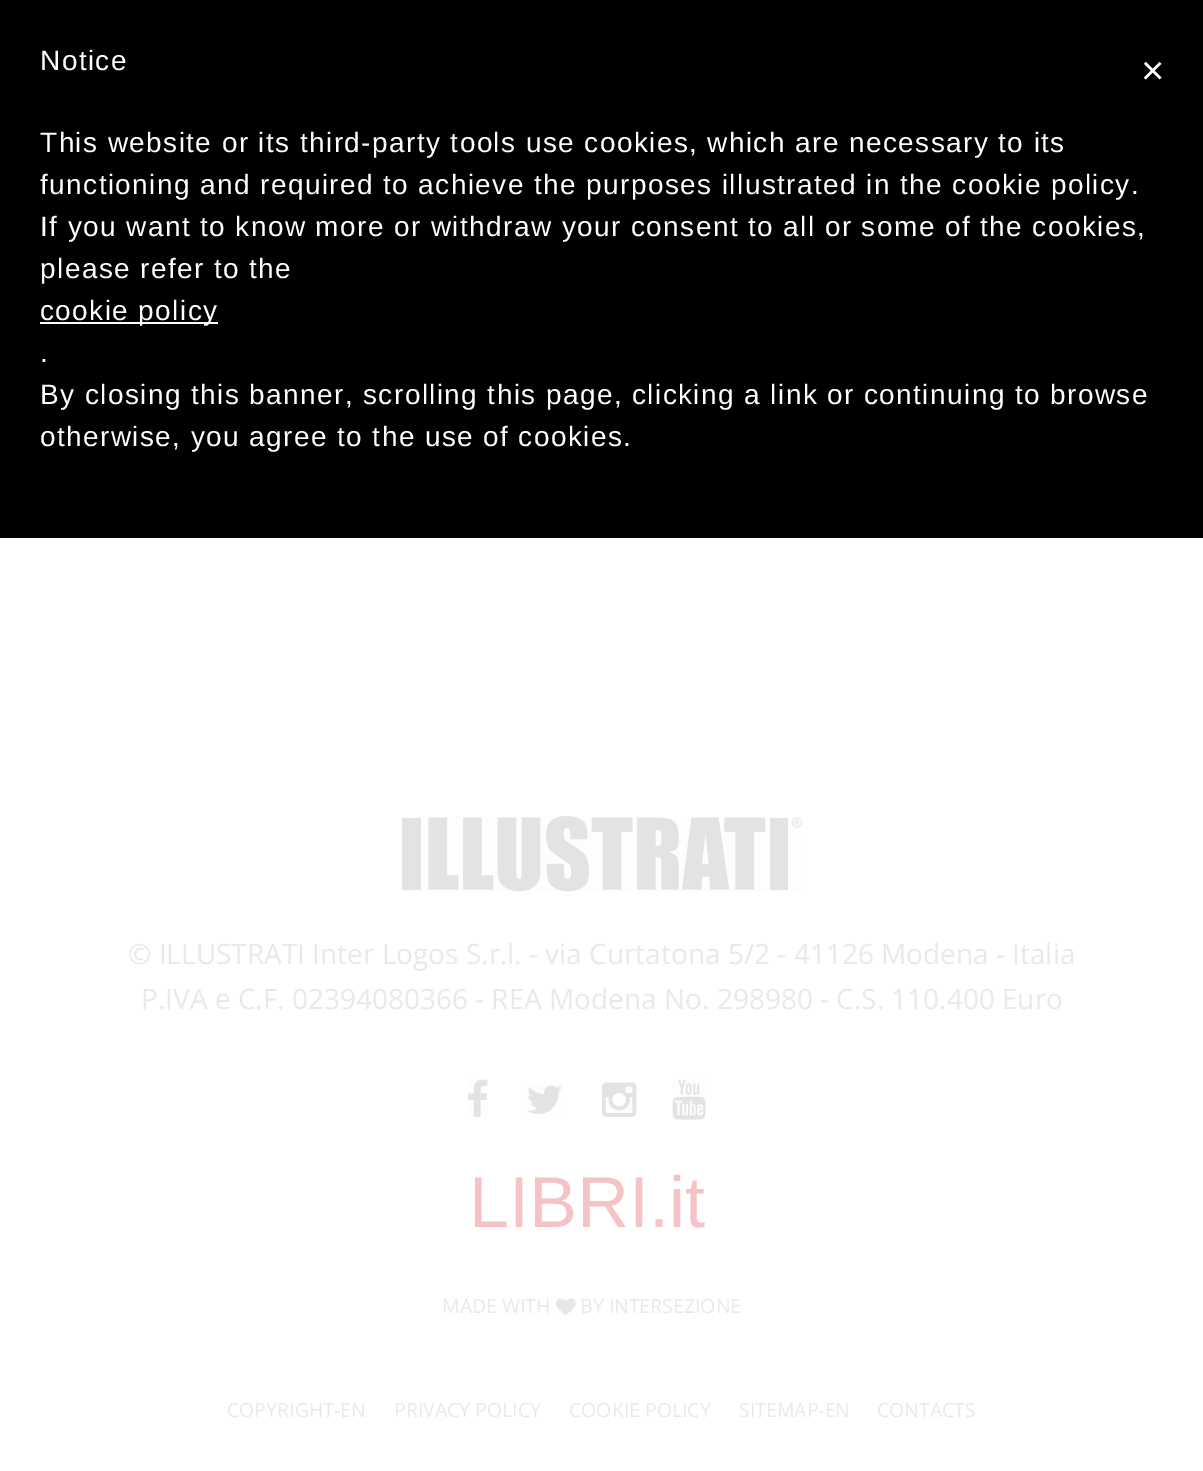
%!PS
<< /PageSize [1203 1471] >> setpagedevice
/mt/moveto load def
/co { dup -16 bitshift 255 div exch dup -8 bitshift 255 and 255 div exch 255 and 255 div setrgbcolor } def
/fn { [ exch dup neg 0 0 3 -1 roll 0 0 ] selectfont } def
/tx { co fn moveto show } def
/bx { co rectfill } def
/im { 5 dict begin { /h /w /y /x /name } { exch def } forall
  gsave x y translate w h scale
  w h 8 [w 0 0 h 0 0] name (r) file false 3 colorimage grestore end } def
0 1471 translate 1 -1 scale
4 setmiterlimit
0 0 1203 1471 16#FFFFFF bx
0 0 1203 538 16#000000 bx
40 322 178 2 16#FFFFFF bx
(media/1.raw) 402 816 400 76 im
(media/2.raw) 468 1079 20 38 im
(media/3.raw) 527 1085 35 29 im
(media/4.raw) 602 1082 35 35 im
(media/5.raw) 672 1079 34 41 im
(media/6.raw) 556 1298 20 18 im
/LiberationSans-Regular 28 fn
40 70 mt 1.4 0 (Notice) ashow
40 152 mt 1.4 0 (This website or its third-party tools use cookies, which are necessary to its) ashow
40 194 mt 1.4 0 (functioning and required to achieve the purposes illustrated in the cookie policy.) ashow
40 236 mt 1.4 0 (If you want to know more or withdraw your consent to all or some of the cookies,) ashow
40 278 mt 1.4 0 (please refer to the) ashow
40 320 mt 1.4 0 (cookie policy) ashow
40 362 mt 1.4 0 (.) ashow
40 404 mt 1.4 0 (By closing this banner, scrolling this page, clicking a link or continuing to browse) ashow
40 446 mt 1.4 0 (otherwise, you agree to the use of cookies.) ashow
(×) 1141 84 /LiberationSans-Regular 40 16#FFFFFF tx
(© ILLUSTRATI Inter Logos S.r.l. - via Curtatona 5/2 - 41126 Modena - Italia) 128 964 /OpenSans-Regular 28 16#E9E9E9 tx
(P.IVA e C.F. 02394080366 - REA Modena No. 298980 - C.S. 110.400 Euro) 141 1009 /OpenSans-Regular 28 16#E9E9E9 tx
(LIBRI.it) 469 1227 /LiberationSans-Regular 72 16#F5C3C5 tx
(MADE WITH) 442 1313 /OpenSans-Regular 19.5 16#E9E9E9 tx
(BY INTERSEZIONE) 580 1313 /OpenSans-Regular 19.5 16#E9E9E9 tx
(COPYRIGHT-EN) 227 1417 /OpenSans-Regular 19.5 16#E9E9E9 tx
(PRIVACY POLICY) 394 1417 /OpenSans-Regular 19.5 16#E9E9E9 tx
(COOKIE POLICY) 569 1417 /OpenSans-Regular 19.5 16#E9E9E9 tx
(SITEMAP-EN) 739 1417 /OpenSans-Regular 19.5 16#E9E9E9 tx
(CONTACTS) 877 1417 /OpenSans-Regular 19.5 16#E9E9E9 tx
showpage
